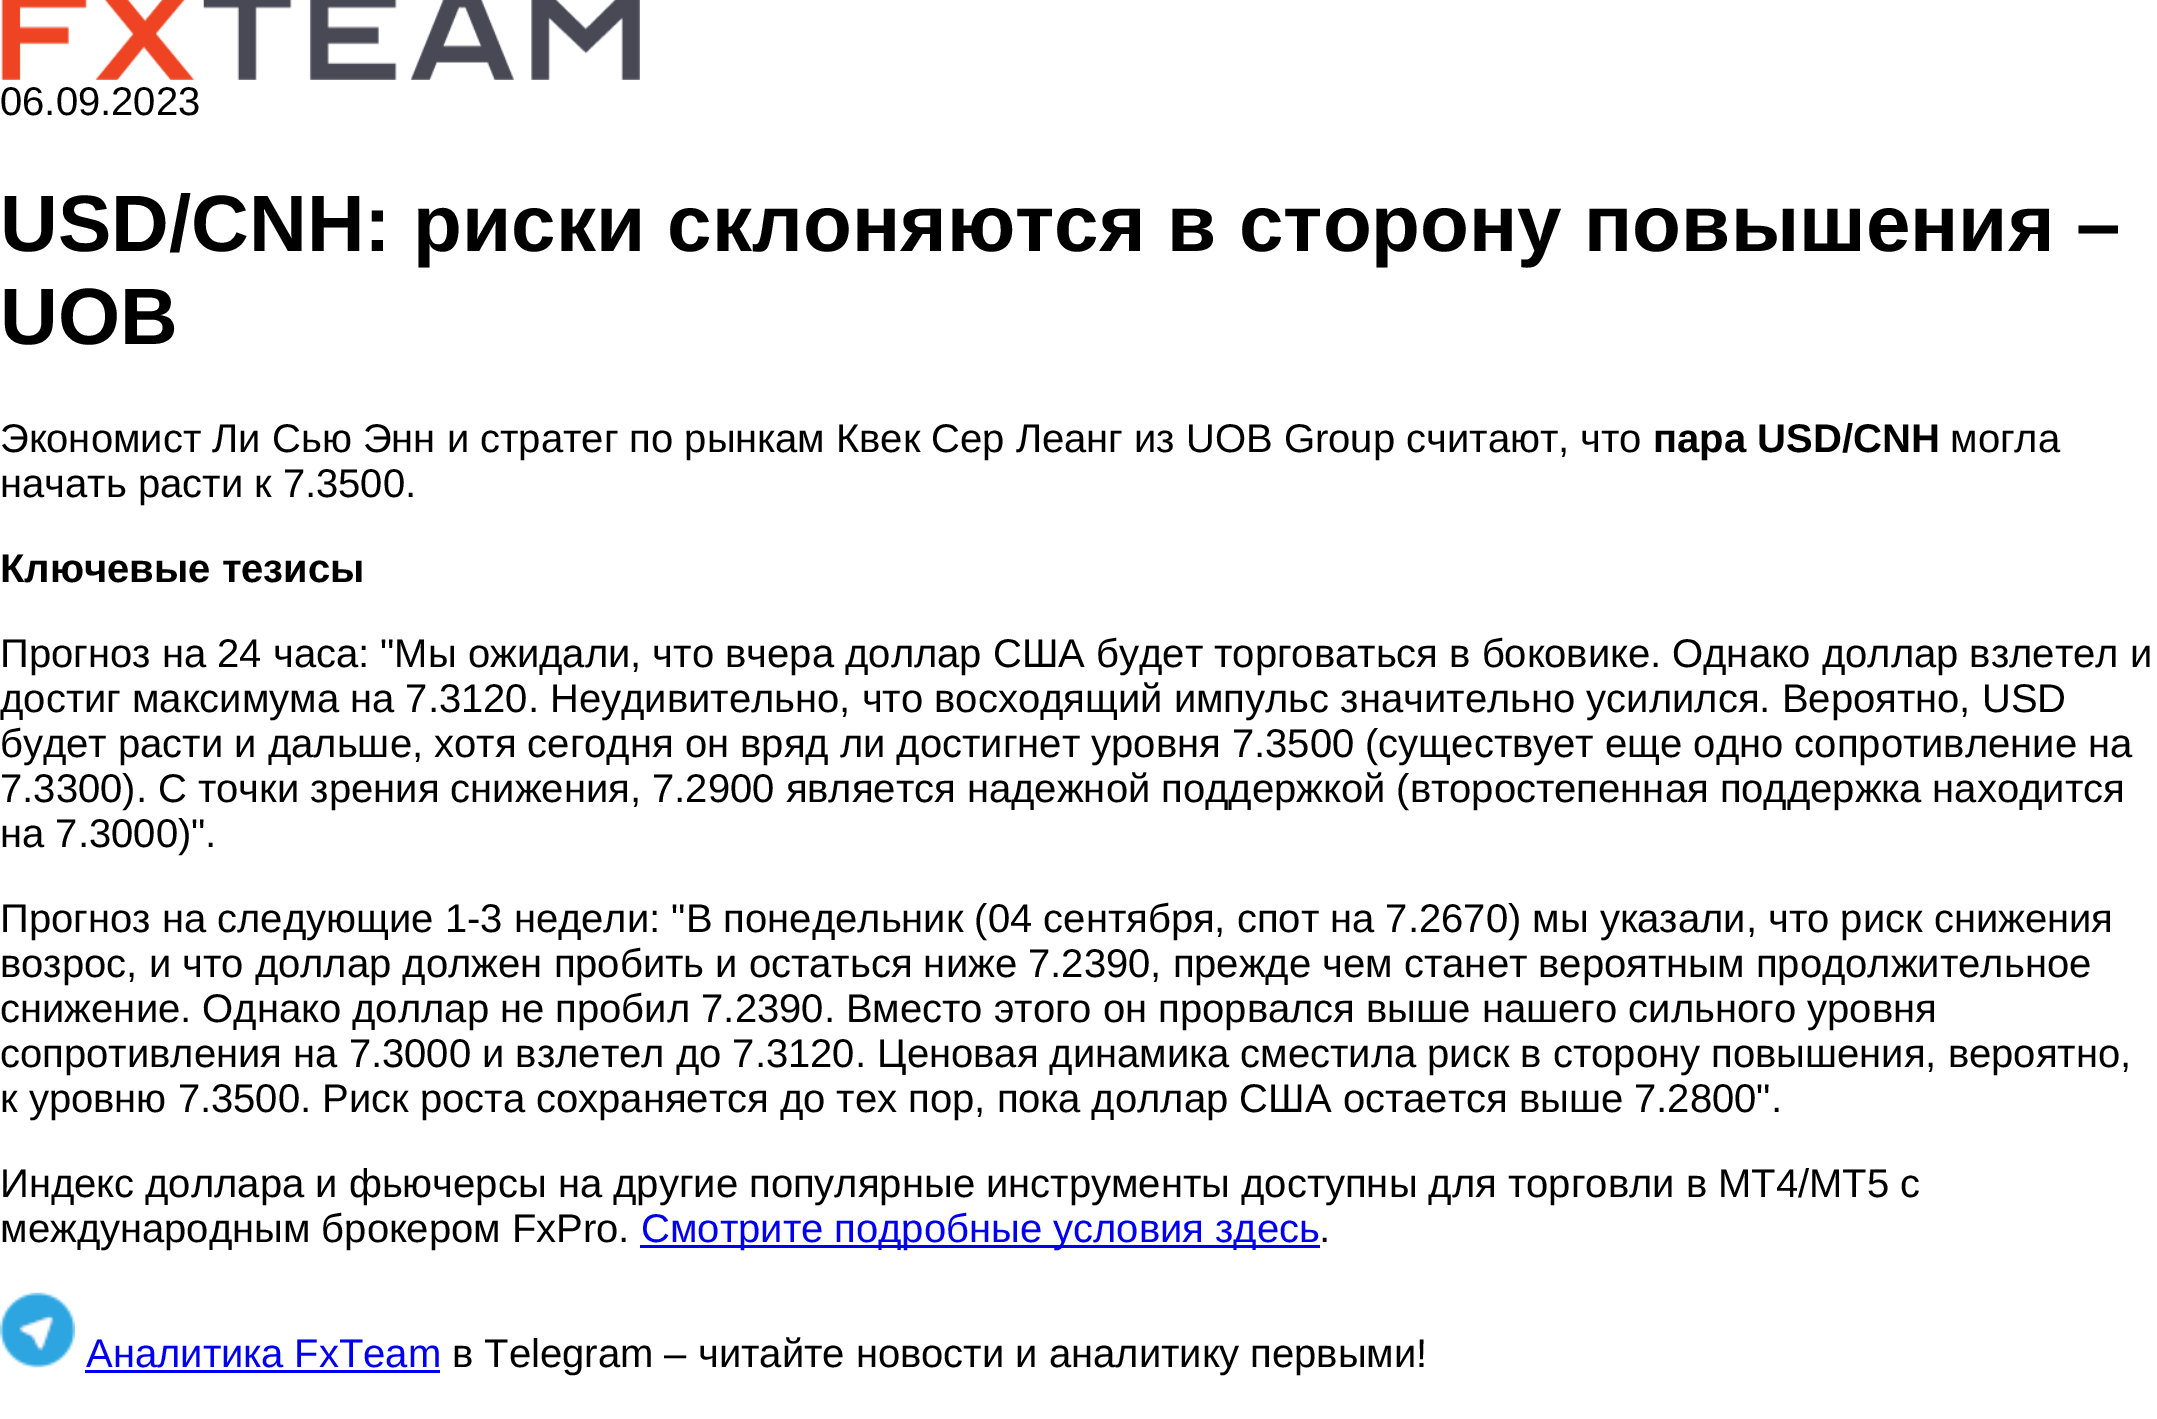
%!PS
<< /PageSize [2157 1419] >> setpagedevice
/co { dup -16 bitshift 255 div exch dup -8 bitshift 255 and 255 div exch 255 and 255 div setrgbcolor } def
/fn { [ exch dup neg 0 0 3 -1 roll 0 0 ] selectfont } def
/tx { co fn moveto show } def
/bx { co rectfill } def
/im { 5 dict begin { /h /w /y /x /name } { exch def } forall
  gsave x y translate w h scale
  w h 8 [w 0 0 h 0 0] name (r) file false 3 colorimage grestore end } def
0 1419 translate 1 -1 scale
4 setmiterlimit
0 0 2157 1419 16#FFFFFF bx
(media/1.raw) 1 0 639 80 im
640 1245 680 3 16#0000EE bx
(media/2.raw) 0 1292 75 76 im
85 1370 355 3 16#0000EE bx
(06.09.2023) 0 115 /LiberationSans-Regular 40 16#000000 tx
(USD/CNH: риски склоняются в сторону повышения –) 0 251 /LiberationSans-Bold 80 16#000000 tx
(UOB) 0 344 /LiberationSans-Bold 80 16#000000 tx
(Экономист Ли Сью Энн и стратег по рынкам Квек Сер Леанг из UOB Group считают, что) 0 452 /LiberationSans-Regular 40 16#000000 tx
(пара USD/CNH) 1653 452 /LiberationSans-Bold 40 16#000000 tx
(могла) 1950 452 /LiberationSans-Regular 40 16#000000 tx
(начать расти к 7.3500.) 0 497 /LiberationSans-Regular 40 16#000000 tx
(Ключевые тезисы) 0 582 /LiberationSans-Bold 40 16#000000 tx
(Прогноз на 24 часа: "Мы ожидали, что вчера доллар США будет торговаться в боковике. Однако доллар взлетел и) 0 667 /LiberationSans-Regular 40 16#000000 tx
(достиг максимума на 7.3120. Неудивительно, что восходящий импульс значительно усилился. Вероятно, USD) 0 712 /LiberationSans-Regular 40 16#000000 tx
(будет расти и дальше, хотя сегодня он вряд ли достигнет уровня 7.3500 \(существует еще одно сопротивление на) 0 757 /LiberationSans-Regular 40 16#000000 tx
(7.3300\). С точки зрения снижения, 7.2900 является надежной поддержкой \(второстепенная поддержка находится) 0 802 /LiberationSans-Regular 40 16#000000 tx
(на 7.3000\)".) 0 847 /LiberationSans-Regular 40 16#000000 tx
(Прогноз на следующие 1-3 недели: "В понедельник \(04 сентября, спот на 7.2670\) мы указали, что риск снижения) 0 932 /LiberationSans-Regular 40 16#000000 tx
(возрос, и что доллар должен пробить и остаться ниже 7.2390, прежде чем станет вероятным продолжительное) 0 977 /LiberationSans-Regular 40 16#000000 tx
(снижение. Однако доллар не пробил 7.2390. Вместо этого он прорвался выше нашего сильного уровня) 0 1022 /LiberationSans-Regular 40 16#000000 tx
(сопротивления на 7.3000 и взлетел до 7.3120. Ценовая динамика сместила риск в сторону повышения, вероятно,) 0 1067 /LiberationSans-Regular 40 16#000000 tx
(к уровню 7.3500. Риск роста сохраняется до тех пор, пока доллар США остается выше 7.2800".) 0 1112 /LiberationSans-Regular 40 16#000000 tx
(Индекс доллара и фьючерсы на другие популярные инструменты доступны для торговли в MT4/MT5 с) 0 1197 /LiberationSans-Regular 40 16#000000 tx
(международным брокером FxPro.) 0 1242 /LiberationSans-Regular 40 16#000000 tx
(Смотрите подробные условия здесь) 641 1242 /LiberationSans-Regular 40 16#0000EE tx
(.) 1319 1242 /LiberationSans-Regular 40 16#000000 tx
(Аналитика FxTeam) 86 1367 /LiberationSans-Regular 40 16#0000EE tx
(в Telegram – читайте новости и аналитику первыми!) 452 1367 /LiberationSans-Regular 40 16#000000 tx
showpage
